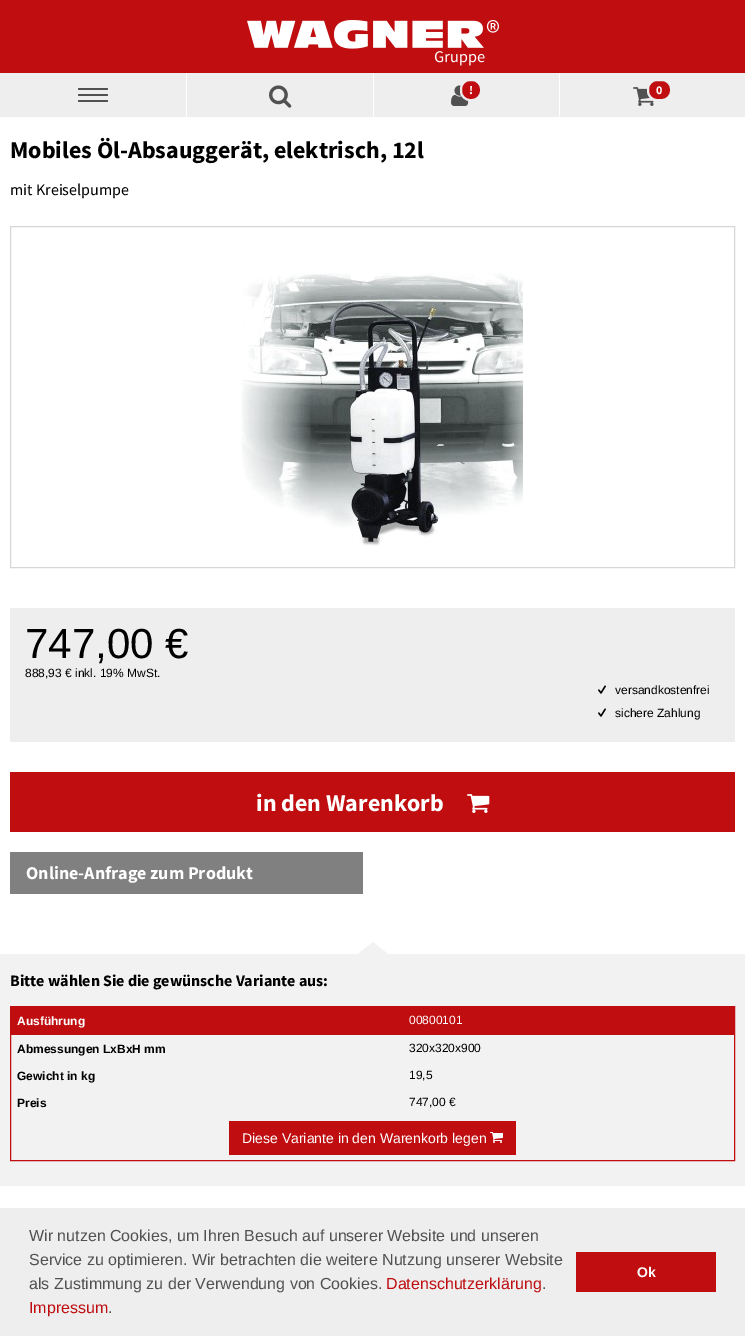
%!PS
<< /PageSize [745 1336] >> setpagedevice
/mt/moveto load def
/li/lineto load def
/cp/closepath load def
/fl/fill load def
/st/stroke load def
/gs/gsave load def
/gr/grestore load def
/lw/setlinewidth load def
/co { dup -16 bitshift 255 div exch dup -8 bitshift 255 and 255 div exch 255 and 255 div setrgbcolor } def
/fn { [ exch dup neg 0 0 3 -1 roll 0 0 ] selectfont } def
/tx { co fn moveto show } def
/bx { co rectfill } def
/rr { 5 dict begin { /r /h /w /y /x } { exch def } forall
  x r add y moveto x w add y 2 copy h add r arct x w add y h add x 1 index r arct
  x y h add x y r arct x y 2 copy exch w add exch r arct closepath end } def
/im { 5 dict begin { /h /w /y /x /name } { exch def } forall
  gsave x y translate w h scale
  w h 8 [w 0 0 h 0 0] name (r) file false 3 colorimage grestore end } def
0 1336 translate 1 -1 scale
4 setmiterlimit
0 0 745 1336 16#FFFFFF bx
0 0 745 73 16#BF0D10 bx
(media/1.raw) 247 20 252 46 im
0 73 745 44 16#EEEEEE bx
16#515151 co
78 88 30 2 1 rr fl
78 94 30 2 1 rr fl
78 100 30 2 1 rr fl
16#FFFFFF co
186 117 mt 186 73 li 187 74 li 187 116 li cp fl
(media/2.raw) 269 85 23 23 im
373 117 mt 373 73 li 374 74 li 374 116 li cp fl
(media/3.raw) 451 85 18 21 im
16#BF0D10 co
461 80 20 20 9 rr gs fl gr
16#EEEEEE co
2 lw
st
16#FFFFFF co
559 117 mt 559 73 li 560 74 li 560 116 li cp fl
(media/4.raw) 633 87 21 19 im
16#BF0D10 co
648 80 23 20 9 rr gs fl gr
16#EEEEEE co
st
16#D7D7D7 co
1 lw
10.5 226.5 724 341 rectstroke
(media/5.raw) 241 273 282 273 im
10 608 725 134 16#EEEEEE bx
(media/6.raw) 598 685 8 9 im
(media/6.raw) 598 708 8 9 im
10 772 725 60 16#BF0D10 bx
(media/7.raw) 467 794 23 19 im
10 852 353 42 16#808080 bx
0 954 745 232 16#F2F2F2 bx
388 954 mt 358 954 li 373 942 li cp fl
16#BF0D10 co
10.5 1006.5 724 154 rectstroke
11 1007 723 28 16#BF0D10 bx
229 1121 287 34 16#BF0D10 bx
(media/8.raw) 490 1132 13 11 im
0 1208 745 128 16#EEEEEE bx
576 1252 140 40 16#BF0D10 bx
(!) 469 94 /SourceSansPro-Bold 12 16#FFFFFF tx
(0) 656 94 /SourceSansPro-Bold 12 16#FFFFFF tx
(Mobiles Öl-Absauggerät, elektrisch, 12l) 10 158 /SourceSansPro-Bold 24 16#000000 tx
(mit Kreiselpumpe) 10 195 /SourceSansPro-Regular 16 16#000000 tx
(747,00 €) 25 658 /LiberationSans-Regular 42 16#000000 tx
(888,93 € inkl. 19% MwSt.) 25 677 /LiberationSans-Regular 12 16#000000 tx
(versandkostenfrei) 615 694 /LiberationSans-Regular 12 16#000000 tx
(sichere Zahlung) 615 717 /LiberationSans-Regular 12 16#000000 tx
(in den Warenkorb) 256 811 /SourceSansPro-Bold 24 16#FFFFFF tx
(Online-Anfrage zum Produkt) 26 879 /SourceSansPro-Bold 18 16#FFFFFF tx
(Bitte wählen Sie die gewünsche Variante aus:) 10 986 /SourceSansPro-Bold 16 16#000000 tx
(Ausführung) 17 1025 /LiberationSans-Bold 12 16#FFFFFF tx
(00800101) 409 1024 /LiberationSans-Regular 12 16#FFFFFF tx
(Abmessungen LxBxH mm) 17 1053 /LiberationSans-Bold 12 16#000000 tx
(320x320x900) 409 1052 /LiberationSans-Regular 12 16#000000 tx
(Gewicht in kg) 17 1080 /LiberationSans-Bold 12 16#000000 tx
(19,5) 409 1079 /LiberationSans-Regular 12 16#000000 tx
(Preis) 17 1107 /LiberationSans-Bold 12 16#000000 tx
(747,00 €) 409 1106 /LiberationSans-Regular 12 16#000000 tx
(Diese Variante in den Warenkorb legen) 242 1143 /LiberationSans-Regular 14 16#FFFFFF tx
(Wir nutzen Cookies, um Ihren Besuch auf unserer Website und unseren) 29 1241 /LiberationSans-Regular 16 16#515151 tx
(Service zu optimieren. Wir betrachten die weitere Nutzung unserer Website) 29 1265 /LiberationSans-Regular 16 16#515151 tx
(als Zustimmung zu der Verwendung von Cookies.) 29 1289 /LiberationSans-Regular 16 16#515151 tx
(Datenschutzerklärung) 386 1289 /LiberationSans-Regular 16 16#BF0D10 tx
(.) 542 1289 /LiberationSans-Regular 16 16#515151 tx
(Impressum) 29 1313 /LiberationSans-Regular 16 16#BF0D10 tx
(.) 108 1313 /LiberationSans-Regular 16 16#515151 tx
(Ok) 637 1277 /LiberationSans-Bold 14 16#FFFFFF tx
showpage
